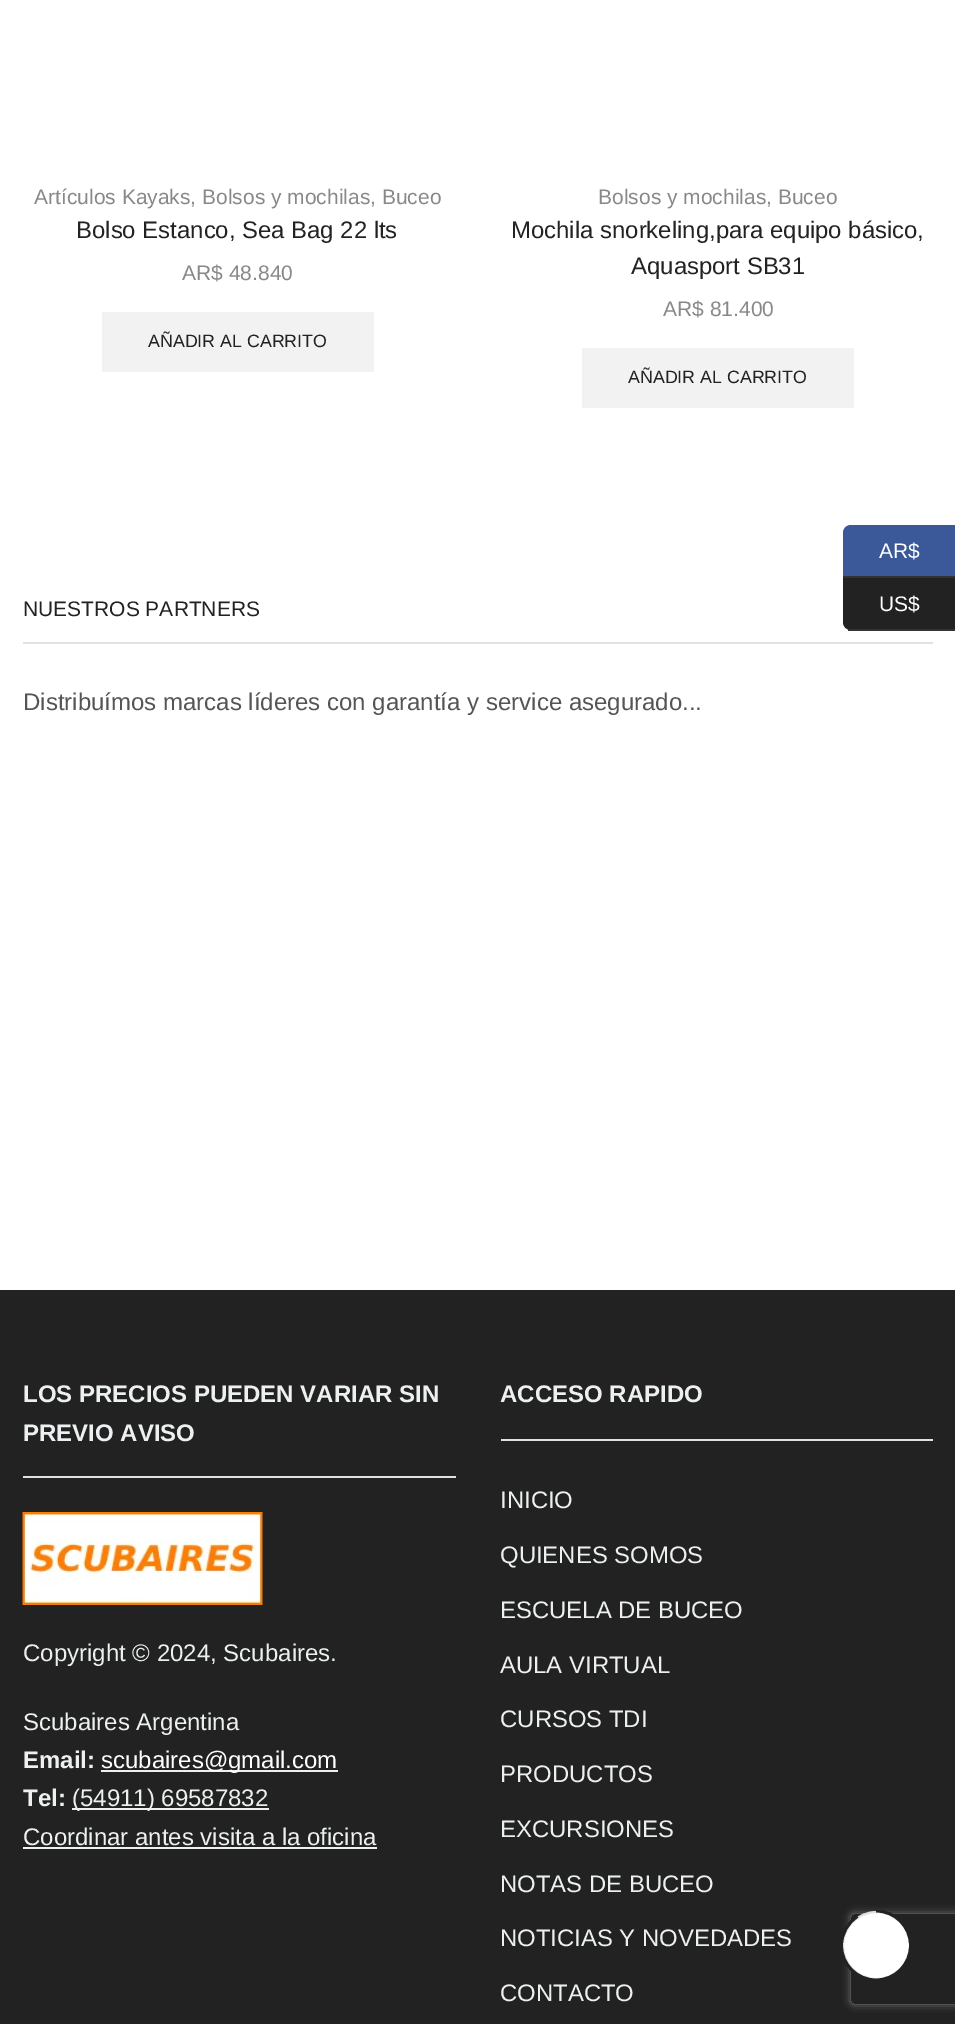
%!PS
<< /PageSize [955 2024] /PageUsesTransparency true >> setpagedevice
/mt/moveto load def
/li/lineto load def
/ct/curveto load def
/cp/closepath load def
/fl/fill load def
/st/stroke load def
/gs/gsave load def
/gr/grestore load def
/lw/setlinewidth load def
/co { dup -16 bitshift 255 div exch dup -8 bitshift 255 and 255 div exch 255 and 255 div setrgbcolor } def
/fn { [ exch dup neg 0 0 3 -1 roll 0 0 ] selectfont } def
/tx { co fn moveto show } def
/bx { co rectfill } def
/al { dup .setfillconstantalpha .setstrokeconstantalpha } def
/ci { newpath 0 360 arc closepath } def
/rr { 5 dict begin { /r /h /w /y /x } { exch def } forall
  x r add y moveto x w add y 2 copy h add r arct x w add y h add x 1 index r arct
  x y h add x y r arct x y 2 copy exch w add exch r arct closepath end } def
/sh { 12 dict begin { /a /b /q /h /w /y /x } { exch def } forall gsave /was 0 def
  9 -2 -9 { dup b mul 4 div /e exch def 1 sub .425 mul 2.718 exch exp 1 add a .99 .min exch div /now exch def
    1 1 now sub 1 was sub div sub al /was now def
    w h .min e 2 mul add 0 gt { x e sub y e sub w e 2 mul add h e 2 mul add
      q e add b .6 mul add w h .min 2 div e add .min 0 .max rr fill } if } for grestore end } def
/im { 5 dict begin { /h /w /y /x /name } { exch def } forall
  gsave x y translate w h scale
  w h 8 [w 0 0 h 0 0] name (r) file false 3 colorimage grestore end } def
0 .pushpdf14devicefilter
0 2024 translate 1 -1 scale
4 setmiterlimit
0 0 955 2024 16#FFFFFF bx
102 312 272 60 16#F2F2F2 bx
582 348 272 60 16#F2F2F2 bx
23 642 910 2 16#E1E1E1 bx
0 1290 955 734 16#222222 bx
23 1476 433 2 16#E1E1E1 bx
(media/1.raw) 22 1512 241 93 im
101 1770 237 2 16#ECF0F1 bx
72 1808 197 2 16#ECF0F1 bx
23 1847 354 2 16#ECF0F1 bx
501 1439 432 2 16#E1E1E1 bx
gs
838 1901 mt 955 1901 li 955 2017 li 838 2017 li cp 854 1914 mt 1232 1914 li 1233.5 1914 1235 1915.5 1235 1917 ct 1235 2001 li 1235 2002.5 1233.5 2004 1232 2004 ct 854 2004 li 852.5 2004 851 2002.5 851 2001 ct 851 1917 li 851 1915.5 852.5 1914 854 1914 ct cp eoclip newpath
16#808080 co
851 1914 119 90 3 4 1 sh
gr
16#FFFFFF co
876.5 1945.5 33.5 ci gs fl gr
16#E1E1E1 co
2 lw
st
gs
840 1910 72 72 rectclip
16#222222 co
2.8 lw
876 1911 mt 895 1911 910.5 1926.5 910.5 1945.5 ct 910.5 1964.5 895 1980 876 1980 ct 857 1980 841.5 1964.5 841.5 1945.5 ct 841.5 1933.5 848 1922.5 857.5 1916.5 ct st
gr
16#3B5998 co
851 525 mt 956 525 li 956 578 li 843 578 li 843 533 li 843 528.5 846.5 525 851 525 ct cp fl
843 576 112 2 16#333333 bx
16#222222 co
843 578 mt 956 578 li 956 630 li 851 630 li 846.5 630 843 626.5 843 622 ct cp fl
848 629 107 2 16#333333 bx
(Artículos Kayaks, Bolsos y mochilas, Buceo) 34 204 /LiberationSans-Regular 21 16#888888 tx
(Bolso Estanco, Sea Bag 22 lts) 76 238 /LiberationSans-Regular 23.9 16#222222 tx
(AR$ 48.840) 182 280 /LiberationSans-Regular 21 16#888888 tx
(AÑADIR AL CARRITO) 148 347 /LiberationSans-Regular 17.8 16#222222 tx
(Bolsos y mochilas, Buceo) 598 204 /LiberationSans-Regular 21 16#888888 tx
(Mochila snorkeling,para equipo básico,) 511 238 /LiberationSans-Regular 23.9 16#222222 tx
(Aquasport SB31) 631 274 /LiberationSans-Regular 23.9 16#222222 tx
(AR$ 81.400) 663 316 /LiberationSans-Regular 21 16#888888 tx
(AÑADIR AL CARRITO) 628 383 /LiberationSans-Regular 17.8 16#222222 tx
(NUESTROS PARTNERS) 23 616 /LiberationSans-Regular 21 16#222222 tx
(Distribuímos marcas líderes con garantía y service asegurado...) 23 710 /LiberationSans-Regular 24 16#555555 tx
(LOS PRECIOS PUEDEN VARIAR SIN) 23 1402 /LiberationSans-Bold 24 16#ECF0F1 tx
(PREVIO AVISO) 23 1441 /LiberationSans-Bold 24 16#ECF0F1 tx
(Copyright © 2024, Scubaires.) 23 1661 /LiberationSans-Regular 24 16#ECF0F1 tx
(Scubaires Argentina) 23 1730 /LiberationSans-Regular 24 16#ECF0F1 tx
(Email:) 23 1768 /LiberationSans-Bold 24 16#ECF0F1 tx
(scubaires@gmail.com) 101 1768 /LiberationSans-Regular 24 16#FFFFFF tx
(Tel:) 23 1806 /LiberationSans-Bold 24 16#ECF0F1 tx
(\(54911\) 69587832) 72 1806 /LiberationSans-Regular 24 16#ECF0F1 tx
(Coordinar antes visita a la oficina) 23 1845 /LiberationSans-Regular 24 16#ECF0F1 tx
(ACCESO RAPIDO) 500 1402 /LiberationSans-Bold 24 16#ECF0F1 tx
(INICIO) 500 1508 /LiberationSans-Regular 23.9 16#ECF0F1 tx
(QUIENES SOMOS) 500 1563 /LiberationSans-Regular 23.9 16#ECF0F1 tx
(ESCUELA DE BUCEO) 500 1618 /LiberationSans-Regular 23.9 16#ECF0F1 tx
(AULA VIRTUAL) 500 1673 /LiberationSans-Regular 23.9 16#ECF0F1 tx
(CURSOS TDI) 500 1727 /LiberationSans-Regular 23.9 16#ECF0F1 tx
(PRODUCTOS) 500 1782 /LiberationSans-Regular 23.9 16#ECF0F1 tx
(EXCURSIONES) 500 1837 /LiberationSans-Regular 23.9 16#ECF0F1 tx
(NOTAS DE BUCEO) 500 1892 /LiberationSans-Regular 23.9 16#ECF0F1 tx
(NOTICIAS Y NOVEDADES) 500 1946 /LiberationSans-Regular 23.9 16#ECF0F1 tx
(CONTACTO) 500 2001 /LiberationSans-Regular 23.9 16#ECF0F1 tx
(AR$) 879 558 /LiberationSans-Regular 21 16#FFFFFF tx
(US$) 879 611 /LiberationSans-Regular 21 16#FFFFFF tx
.poppdf14devicefilter showpage
